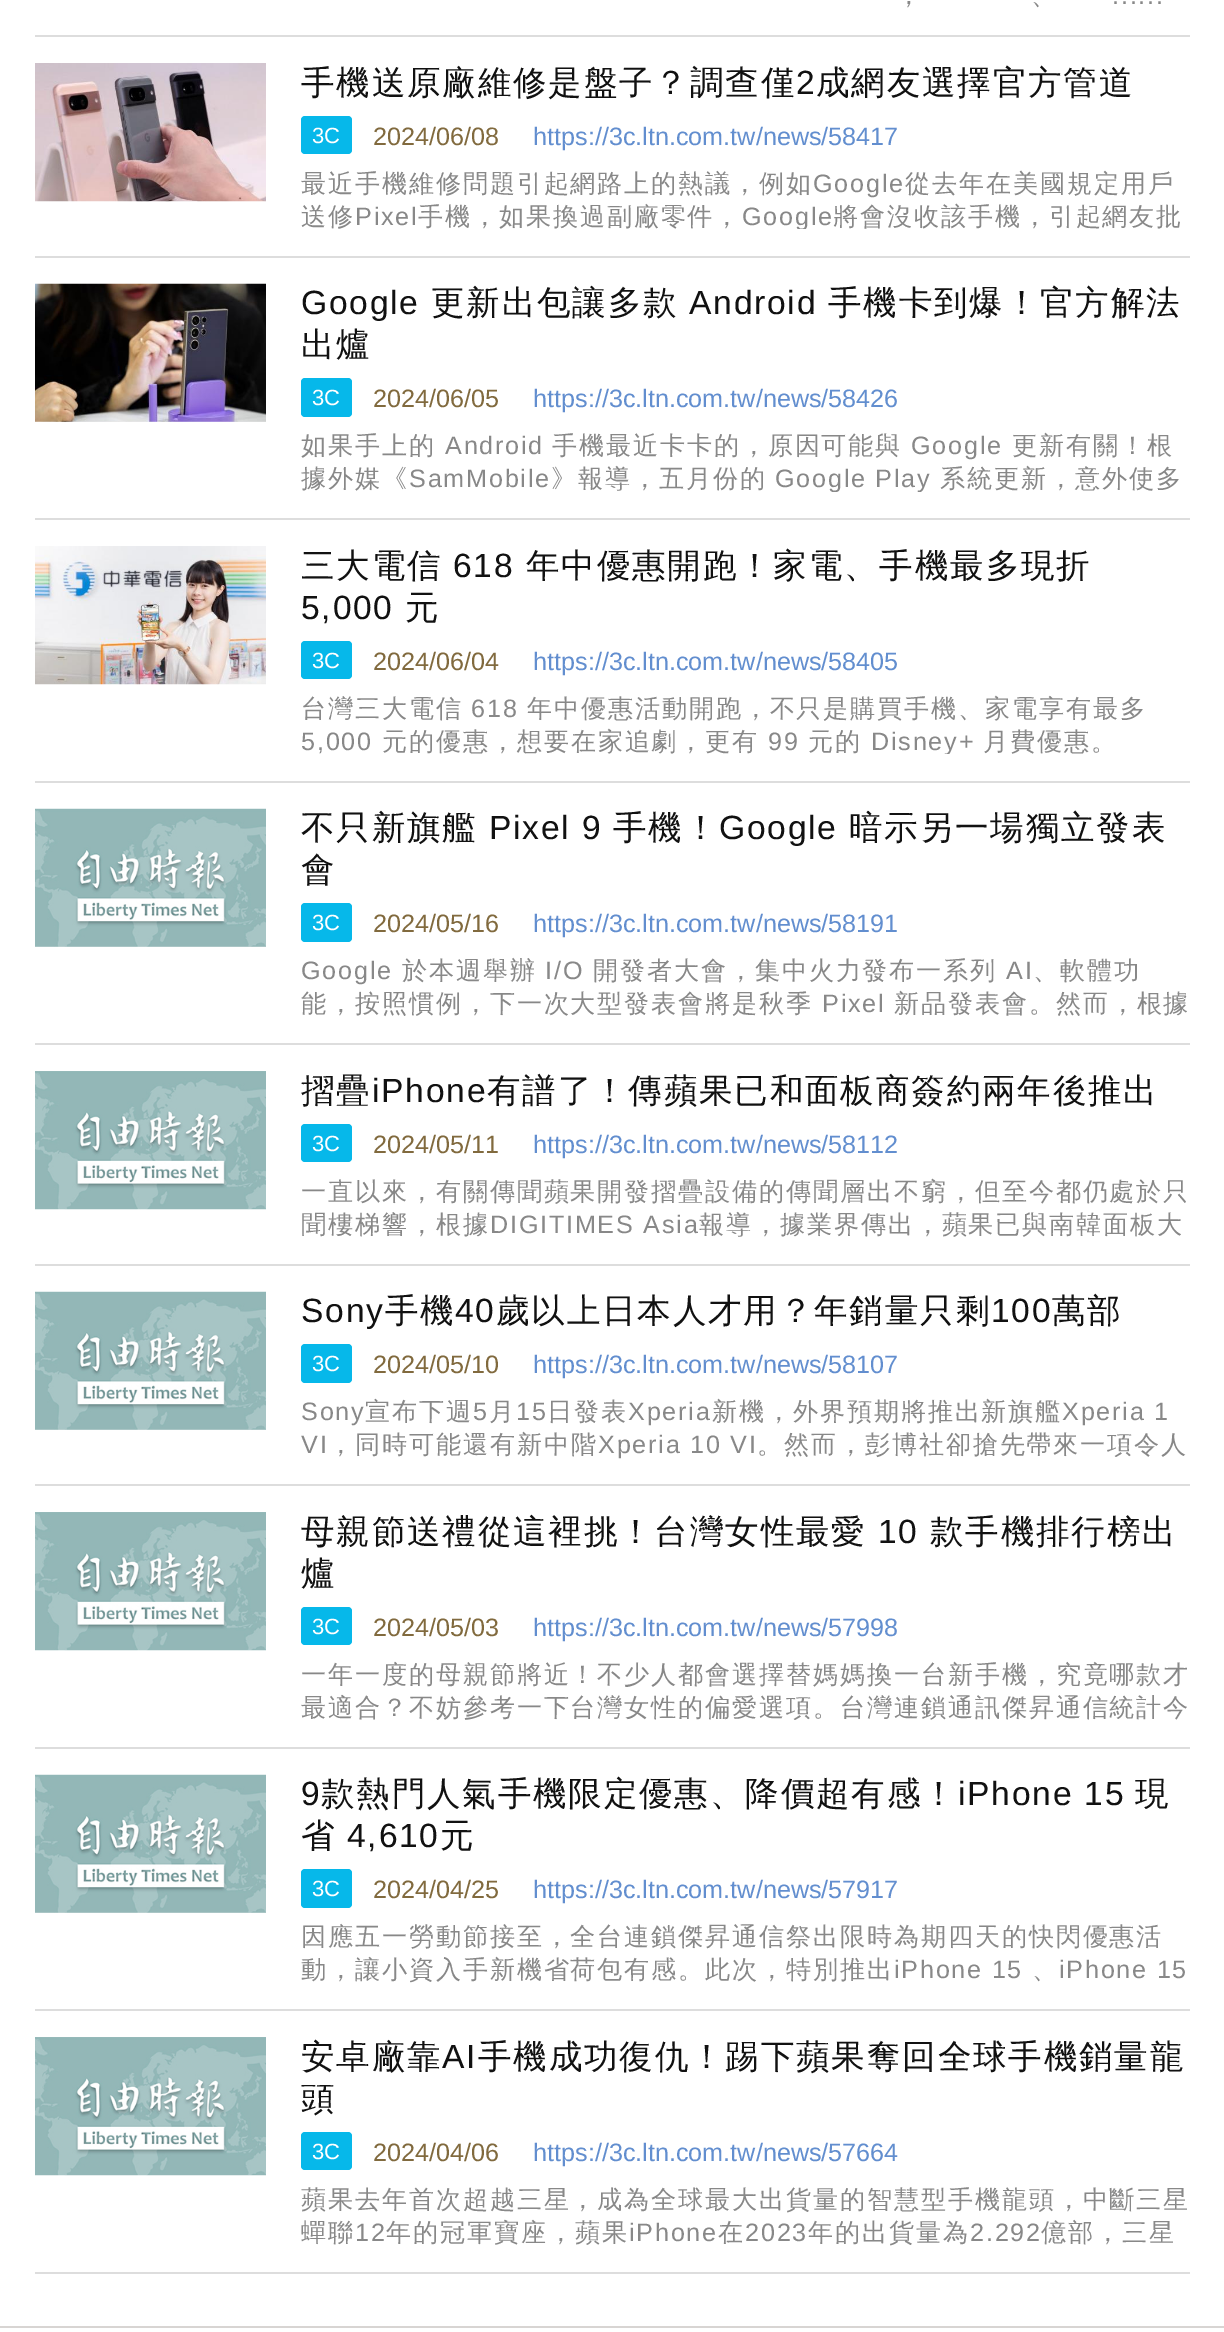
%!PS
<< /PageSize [1224 2332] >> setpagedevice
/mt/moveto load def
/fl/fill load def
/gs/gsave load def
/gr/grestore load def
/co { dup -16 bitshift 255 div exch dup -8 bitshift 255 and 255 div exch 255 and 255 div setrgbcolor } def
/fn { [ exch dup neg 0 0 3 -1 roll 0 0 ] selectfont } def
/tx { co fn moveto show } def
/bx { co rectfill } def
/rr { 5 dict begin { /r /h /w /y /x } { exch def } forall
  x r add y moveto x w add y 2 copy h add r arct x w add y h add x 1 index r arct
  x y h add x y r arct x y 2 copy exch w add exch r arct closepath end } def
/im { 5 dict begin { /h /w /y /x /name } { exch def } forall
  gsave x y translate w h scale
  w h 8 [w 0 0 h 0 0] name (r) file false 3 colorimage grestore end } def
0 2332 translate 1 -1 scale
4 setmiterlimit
0 0 1224 2332 16#FFFFFF bx
35 35 1155 2 16#DDDDDD bx
35 256 1155 2 16#DDDDDD bx
(media/1.raw) 35 63 231 139 im
16#06B8EA co
301 116 51 38 4 rr fl
35 518 1155 2 16#DDDDDD bx
(media/2.raw) 35 283 231 139 im
16#06B8EA co
301 378 51 39 4 rr fl
35 781 1155 2 16#DDDDDD bx
(media/3.raw) 35 546 231 139 im
16#06B8EA co
301 641 51 38 4 rr fl
35 1043 1155 2 16#DDDDDD bx
(media/4.raw) 35 808 231 139 im
16#06B8EA co
301 903 51 39 4 rr fl
35 1264 1155 2 16#DDDDDD bx
(media/5.raw) 35 1071 231 139 im
16#06B8EA co
301 1124 51 38 4 rr fl
35 1484 1155 2 16#DDDDDD bx
(media/4.raw) 35 1291 231 139 im
16#06B8EA co
301 1344 51 39 4 rr fl
35 1747 1155 2 16#DDDDDD bx
(media/5.raw) 35 1512 231 139 im
16#06B8EA co
301 1607 51 38 4 rr fl
35 2009 1155 2 16#DDDDDD bx
(media/4.raw) 35 1774 231 139 im
16#06B8EA co
301 1869 51 39 4 rr fl
35 2272 1155 2 16#DDDDDD bx
(media/6.raw) 35 2037 231 139 im
16#06B8EA co
301 2132 51 38 4 rr fl
0 2326 1224 2 16#D8D5D3 bx
/WenQuanYiZenHei-Medium 25.2 fn
16#888888 co
896 4 mt 1.75 0 (，) ashow
1031 4 mt 1.75 0 (、) ashow
/LiberationSans-Regular 25.2 fn
1112 4 mt 1.75 0 (......) ashow
/WenQuanYiZenHei-Medium 33.6 fn
16#111111 co
301 94 mt 1.75 0 (手機送原廠維修是盤子？調查僅) ashow
/LiberationSans-Regular 33.6 fn
796 94 mt 1.75 0 (2) ashow
/WenQuanYiZenHei-Medium 33.6 fn
816 94 mt 1.75 0 (成網友選擇官方管道) ashow
(3C) 312 143 /LiberationSans-Regular 22 16#FFFFFF tx
(2024/06/08) 373 145 /LiberationSans-Regular 25.2 16#816A3E tx
(https://3c.ltn.com.tw/news/58417) 533 145 /LiberationSans-Regular 25.2 16#628ECF tx
/WenQuanYiZenHei-Medium 25.2 fn
16#888888 co
301 192 mt 1.75 0 (最近手機維修問題引起網路上的熱議，例如) ashow
/LiberationSans-Regular 25.2 fn
813 192 mt 1.75 0 (Google) ashow
/WenQuanYiZenHei-Medium 25.2 fn
905 192 mt 1.75 0 (從去年在美國規定用戶) ashow
301 225 mt 1.75 0 (送修) ashow
/LiberationSans-Regular 25.2 fn
355 225 mt 1.75 0 (Pixel) ashow
/WenQuanYiZenHei-Medium 25.2 fn
418 225 mt 1.75 0 (手機，如果換過副廠零件，) ashow
gs
301 168 889 61 rectclip
/LiberationSans-Regular 25.2 fn
742 225 mt 1.75 0 (Google) ashow
gr
833 225 mt 1.75 0 (將會沒收該手機，引起網友批) ashow
/LiberationSans-Regular 33.6 fn
16#111111 co
301 314 mt 1.75 0 (Google) ashow
/WenQuanYiZenHei-Medium 33.6 fn
431 314 mt 1.75 0 (更新出包讓多款) ashow
/LiberationSans-Regular 33.6 fn
689 314 mt 1.75 0 (Android) ashow
/WenQuanYiZenHei-Medium 33.6 fn
828 314 mt 1.75 0 (手機卡到爆！官方解法) ashow
301 356 mt 1.75 0 (出爐) ashow
(3C) 312 405 /LiberationSans-Regular 22 16#FFFFFF tx
(2024/06/05) 373 407 /LiberationSans-Regular 25.2 16#816A3E tx
(https://3c.ltn.com.tw/news/58426) 533 407 /LiberationSans-Regular 25.2 16#628ECF tx
/WenQuanYiZenHei-Medium 25.2 fn
16#888888 co
301 454 mt 1.75 0 (如果手上的) ashow
/LiberationSans-Regular 25.2 fn
445 454 mt 1.75 0 (Android) ashow
/WenQuanYiZenHei-Medium 25.2 fn
552 454 mt 1.75 0 (手機最近卡卡的，原因可能與) ashow
/LiberationSans-Regular 25.2 fn
911 454 mt 1.75 0 (Google) ashow
/WenQuanYiZenHei-Medium 25.2 fn
1012 454 mt 1.75 0 (更新有關！根) ashow
301 487 mt 1.75 0 (據外媒《) ashow
/LiberationSans-Regular 25.2 fn
409 487 mt 1.75 0 (SamMobile) ashow
/WenQuanYiZenHei-Medium 25.2 fn
551 487 mt 1.75 0 (》報導，五月份的) ashow
gs
301 431 889 61 rectclip
/LiberationSans-Regular 25.2 fn
775 487 mt 1.75 0 (Google Play) ashow
gr
940 487 mt 1.75 0 (系統更新，意外使多) ashow
/WenQuanYiZenHei-Medium 33.6 fn
16#111111 co
301 577 mt 1.75 0 (三大電信) ashow
/LiberationSans-Regular 33.6 fn
453 577 mt 1.75 0 (618) ashow
/WenQuanYiZenHei-Medium 33.6 fn
526 577 mt 1.75 0 (年中優惠開跑！家電、手機最多現折) ashow
/LiberationSans-Regular 33.6 fn
301 619 mt 1.75 0 (5,000) ashow
/WenQuanYiZenHei-Medium 33.6 fn
405 619 mt 1.75 0 (元) ashow
(3C) 312 668 /LiberationSans-Regular 22 16#FFFFFF tx
(2024/06/04) 373 670 /LiberationSans-Regular 25.2 16#816A3E tx
(https://3c.ltn.com.tw/news/58405) 533 670 /LiberationSans-Regular 25.2 16#628ECF tx
/WenQuanYiZenHei-Medium 25.2 fn
16#888888 co
301 717 mt 1.75 0 (台灣三大電信) ashow
/LiberationSans-Regular 25.2 fn
471 717 mt 1.75 0 (618) ashow
/WenQuanYiZenHei-Medium 25.2 fn
527 717 mt 1.75 0 (年中優惠活動開跑，不只是購買手機、家電享有最多) ashow
/LiberationSans-Regular 25.2 fn
301 750 mt 1.75 0 (5,000) ashow
/WenQuanYiZenHei-Medium 25.2 fn
382 750 mt 1.75 0 (元的優惠，想要在家追劇，更有) ashow
/LiberationSans-Regular 25.2 fn
768 750 mt 1.75 0 (99) ashow
/WenQuanYiZenHei-Medium 25.2 fn
808 750 mt 1.75 0 (元的) ashow
gs
301 693 889 61 rectclip
/LiberationSans-Regular 25.2 fn
871 750 mt 1.75 0 (Disney+) ashow
gr
983 750 mt 1.75 0 (月費優惠。) ashow
/WenQuanYiZenHei-Medium 33.6 fn
16#111111 co
301 839 mt 1.75 0 (不只新旗艦) ashow
/LiberationSans-Regular 33.6 fn
489 839 mt 1.75 0 (Pixel 9) ashow
/WenQuanYiZenHei-Medium 33.6 fn
613 839 mt 1.75 0 (手機！) ashow
/LiberationSans-Regular 33.6 fn
719 839 mt 1.75 0 (Google) ashow
/WenQuanYiZenHei-Medium 33.6 fn
849 839 mt 1.75 0 (暗示另一場獨立發表) ashow
301 881 mt 1.75 0 (會) ashow
(3C) 312 930 /LiberationSans-Regular 22 16#FFFFFF tx
(2024/05/16) 373 932 /LiberationSans-Regular 25.2 16#816A3E tx
(https://3c.ltn.com.tw/news/58191) 533 932 /LiberationSans-Regular 25.2 16#628ECF tx
16#888888 co
301 979 mt 1.75 0 (Google) ashow
/WenQuanYiZenHei-Medium 25.2 fn
402 979 mt 1.75 0 (於本週舉辦) ashow
/LiberationSans-Regular 25.2 fn
545 979 mt 1.75 0 (I/O) ashow
/WenQuanYiZenHei-Medium 25.2 fn
593 979 mt 1.75 0 (開發者大會，集中火力發布一系列) ashow
/LiberationSans-Regular 25.2 fn
1006 979 mt 1.75 0 (AI) ashow
/WenQuanYiZenHei-Medium 25.2 fn
1033 979 mt 1.75 0 (、軟體功) ashow
301 1012 mt 1.75 0 (能，按照慣例，下一次大型發表會將是秋季) ashow
/LiberationSans-Regular 25.2 fn
822 1012 mt 1.75 0 (Pixel) ashow
/WenQuanYiZenHei-Medium 25.2 fn
894 1012 mt 1.75 0 (新品發表會。然而，根據) ashow
/WenQuanYiZenHei-Medium 33.6 fn
16#111111 co
301 1102 mt 1.75 0 (摺疊) ashow
/LiberationSans-Regular 33.6 fn
372 1102 mt 1.75 0 (iPhone) ashow
/WenQuanYiZenHei-Medium 33.6 fn
487 1102 mt 1.75 0 (有譜了！傳蘋果已和面板商簽約兩年後推出) ashow
(3C) 312 1151 /LiberationSans-Regular 22 16#FFFFFF tx
(2024/05/11) 373 1153 /LiberationSans-Regular 25.2 16#816A3E tx
(https://3c.ltn.com.tw/news/58112) 533 1153 /LiberationSans-Regular 25.2 16#628ECF tx
/WenQuanYiZenHei-Medium 25.2 fn
16#888888 co
301 1200 mt 1.75 0 (一直以來，有關傳聞蘋果開發摺疊設備的傳聞層出不窮，但至今都仍處於只) ashow
301 1233 mt 1.75 0 (聞樓梯響，根據) ashow
/LiberationSans-Regular 25.2 fn
490 1233 mt 1.75 0 (DIGITIMES Asia) ashow
/WenQuanYiZenHei-Medium 25.2 fn
699 1233 mt 1.75 0 (報導，據業界傳出，蘋果已與南韓面板大) ashow
/LiberationSans-Regular 33.6 fn
16#111111 co
301 1322 mt 1.75 0 (Sony) ashow
/WenQuanYiZenHei-Medium 33.6 fn
385 1322 mt 1.75 0 (手機) ashow
/LiberationSans-Regular 33.6 fn
455 1322 mt 1.75 0 (40) ashow
/WenQuanYiZenHei-Medium 33.6 fn
496 1322 mt 1.75 0 (歲以上日本人才用？年銷量只剩) ashow
/LiberationSans-Regular 33.6 fn
991 1322 mt 1.75 0 (100) ashow
/WenQuanYiZenHei-Medium 33.6 fn
1052 1322 mt 1.75 0 (萬部) ashow
(3C) 312 1371 /LiberationSans-Regular 22 16#FFFFFF tx
(2024/05/10) 373 1373 /LiberationSans-Regular 25.2 16#816A3E tx
(https://3c.ltn.com.tw/news/58107) 533 1373 /LiberationSans-Regular 25.2 16#628ECF tx
16#888888 co
301 1420 mt 1.75 0 (Sony) ashow
/WenQuanYiZenHei-Medium 25.2 fn
365 1420 mt 1.75 0 (宣布下週) ashow
/LiberationSans-Regular 25.2 fn
473 1420 mt 1.75 0 (5) ashow
/WenQuanYiZenHei-Medium 25.2 fn
489 1420 mt 1.75 0 (月) ashow
/LiberationSans-Regular 25.2 fn
516 1420 mt 1.75 0 (15) ashow
/WenQuanYiZenHei-Medium 25.2 fn
547 1420 mt 1.75 0 (日發表) ashow
/LiberationSans-Regular 25.2 fn
628 1420 mt 1.75 0 (Xperia) ashow
/WenQuanYiZenHei-Medium 25.2 fn
712 1420 mt 1.75 0 (新機，外界預期將推出新旗艦) ashow
/LiberationSans-Regular 25.2 fn
1062 1420 mt 1.75 0 (Xperia 1) ashow
301 1453 mt 1.75 0 (VI) ashow
/WenQuanYiZenHei-Medium 25.2 fn
328 1453 mt 1.75 0 (，同時可能還有新中階) ashow
/LiberationSans-Regular 25.2 fn
598 1453 mt 1.75 0 (Xperia 10 VI) ashow
/WenQuanYiZenHei-Medium 25.2 fn
757 1453 mt 1.75 0 (。然而，彭博社卻搶先帶來一項令人) ashow
/WenQuanYiZenHei-Medium 33.6 fn
16#111111 co
301 1543 mt 1.75 0 (母親節送禮從這裡挑！台灣女性最愛) ashow
/LiberationSans-Regular 33.6 fn
878 1543 mt 1.75 0 (10) ashow
/WenQuanYiZenHei-Medium 33.6 fn
930 1543 mt 1.75 0 (款手機排行榜出) ashow
301 1585 mt 1.75 0 (爐) ashow
(3C) 312 1634 /LiberationSans-Regular 22 16#FFFFFF tx
(2024/05/03) 373 1636 /LiberationSans-Regular 25.2 16#816A3E tx
(https://3c.ltn.com.tw/news/57998) 533 1636 /LiberationSans-Regular 25.2 16#628ECF tx
/WenQuanYiZenHei-Medium 25.2 fn
16#888888 co
301 1683 mt 1.75 0 (一年一度的母親節將近！不少人都會選擇替媽媽換一台新手機，究竟哪款才) ashow
301 1716 mt 1.75 0 (最適合？不妨參考一下台灣女性的偏愛選項。台灣連鎖通訊傑昇通信統計今) ashow
/LiberationSans-Regular 33.6 fn
16#111111 co
301 1805 mt 1.75 0 (9) ashow
/WenQuanYiZenHei-Medium 33.6 fn
321 1805 mt 1.75 0 (款熱門人氣手機限定優惠、降價超有感！) ashow
/LiberationSans-Regular 33.6 fn
958 1805 mt 1.75 0 (iPhone 15) ashow
/WenQuanYiZenHei-Medium 33.6 fn
1135 1805 mt 1.75 0 (現) ashow
301 1847 mt 1.75 0 (省) ashow
/LiberationSans-Regular 33.6 fn
347 1847 mt 1.75 0 (4,610) ashow
/WenQuanYiZenHei-Medium 33.6 fn
440 1847 mt 1.75 0 (元) ashow
(3C) 312 1896 /LiberationSans-Regular 22 16#FFFFFF tx
(2024/04/25) 373 1898 /LiberationSans-Regular 25.2 16#816A3E tx
(https://3c.ltn.com.tw/news/57917) 533 1898 /LiberationSans-Regular 25.2 16#628ECF tx
/WenQuanYiZenHei-Medium 25.2 fn
16#888888 co
301 1945 mt 1.75 0 (因應五一勞動節接至，全台連鎖傑昇通信祭出限時為期四天的快閃優惠活) ashow
301 1978 mt 1.75 0 (動，讓小資入手新機省荷包有感。此次，特別推出) ashow
/LiberationSans-Regular 25.2 fn
894 1978 mt 1.75 0 (iPhone 15) ashow
/WenQuanYiZenHei-Medium 25.2 fn
1032 1978 mt 1.75 0 (、) ashow
/LiberationSans-Regular 25.2 fn
1059 1978 mt 1.75 0 (iPhone 15) ashow
/WenQuanYiZenHei-Medium 33.6 fn
16#111111 co
301 2068 mt 1.75 0 (安卓廠靠) ashow
/LiberationSans-Regular 33.6 fn
442 2068 mt 1.75 0 (AI) ashow
/WenQuanYiZenHei-Medium 33.6 fn
478 2068 mt 1.75 0 (手機成功復仇！踢下蘋果奪回全球手機銷量龍) ashow
301 2110 mt 1.75 0 (頭) ashow
(3C) 312 2159 /LiberationSans-Regular 22 16#FFFFFF tx
(2024/04/06) 373 2161 /LiberationSans-Regular 25.2 16#816A3E tx
(https://3c.ltn.com.tw/news/57664) 533 2161 /LiberationSans-Regular 25.2 16#628ECF tx
/WenQuanYiZenHei-Medium 25.2 fn
16#888888 co
301 2208 mt 1.75 0 (蘋果去年首次超越三星，成為全球最大出貨量的智慧型手機龍頭，中斷三星) ashow
301 2241 mt 1.75 0 (蟬聯) ashow
/LiberationSans-Regular 25.2 fn
355 2241 mt 1.75 0 (12) ashow
/WenQuanYiZenHei-Medium 25.2 fn
386 2241 mt 1.75 0 (年的冠軍寶座，蘋果) ashow
/LiberationSans-Regular 25.2 fn
629 2241 mt 1.75 0 (iPhone) ashow
/WenQuanYiZenHei-Medium 25.2 fn
718 2241 mt 1.75 0 (在) ashow
/LiberationSans-Regular 25.2 fn
745 2241 mt 1.75 0 (2023) ashow
/WenQuanYiZenHei-Medium 25.2 fn
808 2241 mt 1.75 0 (年的出貨量為) ashow
/LiberationSans-Regular 25.2 fn
970 2241 mt 1.75 0 (2.292) ashow
/WenQuanYiZenHei-Medium 25.2 fn
1041 2241 mt 1.75 0 (億部，三星) ashow
showpage
